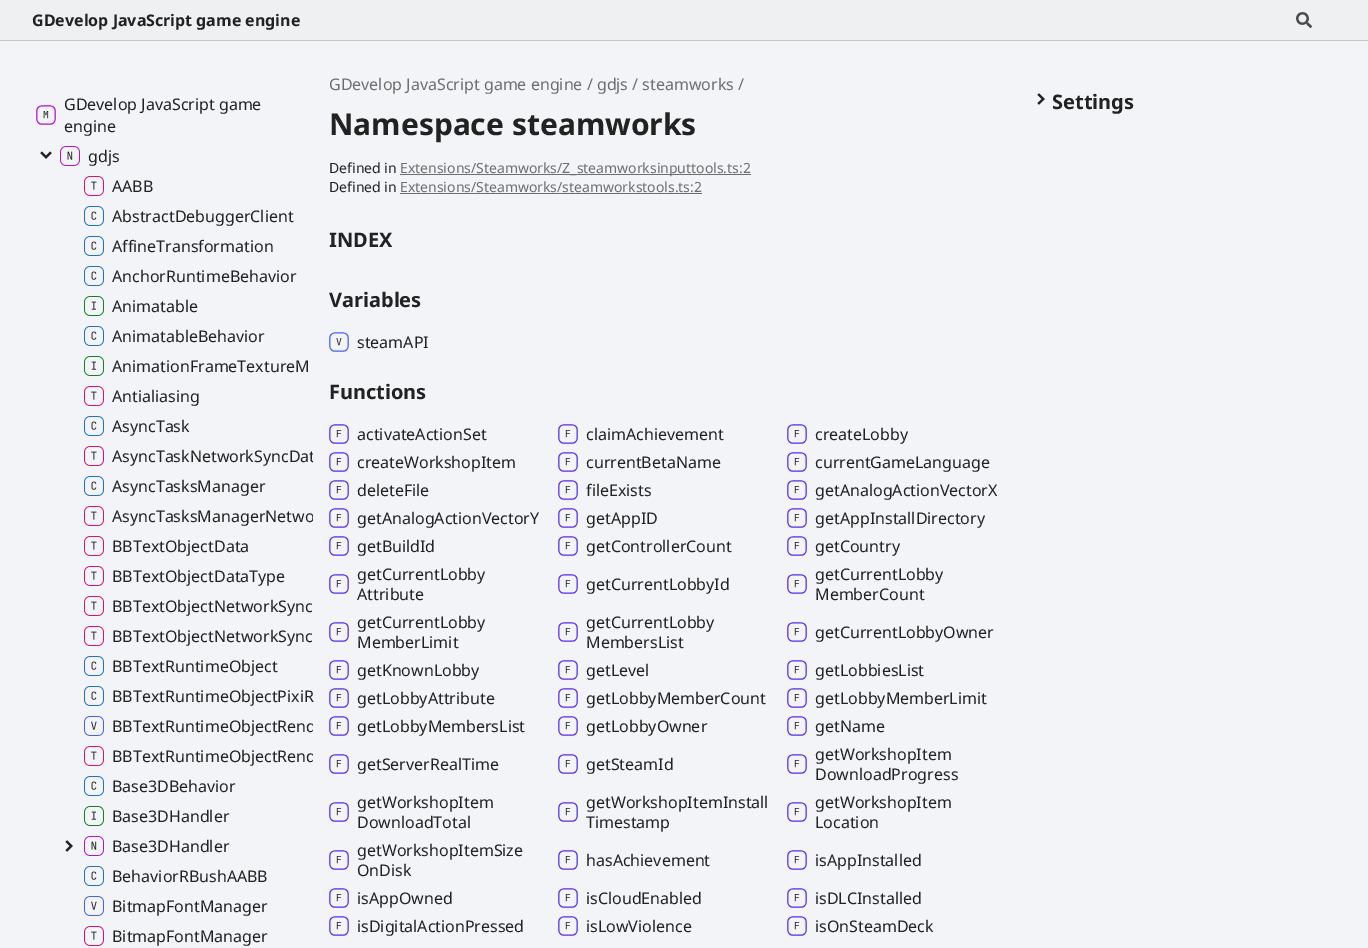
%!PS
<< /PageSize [1368 948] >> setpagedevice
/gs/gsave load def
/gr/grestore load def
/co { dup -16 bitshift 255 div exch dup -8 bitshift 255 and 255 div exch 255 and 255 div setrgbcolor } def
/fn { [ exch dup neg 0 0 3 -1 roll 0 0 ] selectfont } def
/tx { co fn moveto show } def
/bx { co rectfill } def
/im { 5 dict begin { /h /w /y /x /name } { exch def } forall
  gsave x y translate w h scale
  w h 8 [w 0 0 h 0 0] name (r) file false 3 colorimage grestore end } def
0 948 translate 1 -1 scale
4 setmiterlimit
0 0 1368 948 16#F2F4F8 bx
0 0 1368 40 16#EFF0F1 bx
0 40 1368 1 16#C5C7C9 bx
(media/1.raw) 1296 12 16 16 im
400 174 351 1 16#6E6E6E bx
400 193 302 1 16#6E6E6E bx
(media/2.raw) 329 332 20 20 im
(media/3.raw) 329 424 20 20 im
(media/3.raw) 558 424 20 20 im
(media/3.raw) 787 424 20 20 im
(media/3.raw) 329 452 20 20 im
(media/3.raw) 558 452 20 20 im
(media/3.raw) 787 452 20 20 im
(media/3.raw) 329 480 20 20 im
(media/3.raw) 558 480 20 20 im
(media/3.raw) 787 480 20 20 im
(media/4.raw) 329 508 20 20 im
(media/4.raw) 558 508 20 20 im
(media/4.raw) 787 508 20 20 im
(media/3.raw) 329 536 20 20 im
(media/3.raw) 558 536 20 20 im
(media/3.raw) 787 536 20 20 im
(media/3.raw) 329 574 20 20 im
(media/3.raw) 558 574 20 20 im
(media/3.raw) 787 574 20 20 im
(media/3.raw) 329 622 20 20 im
(media/3.raw) 558 622 20 20 im
(media/3.raw) 787 622 20 20 im
(media/3.raw) 329 660 20 20 im
(media/3.raw) 558 660 20 20 im
(media/3.raw) 787 660 20 20 im
(media/3.raw) 329 688 20 20 im
(media/3.raw) 558 688 20 20 im
(media/3.raw) 787 688 20 20 im
(media/3.raw) 329 716 20 20 im
(media/3.raw) 558 716 20 20 im
(media/3.raw) 787 716 20 20 im
(media/3.raw) 329 754 20 20 im
(media/3.raw) 558 754 20 20 im
(media/3.raw) 787 754 20 20 im
(media/3.raw) 329 802 20 20 im
(media/3.raw) 558 802 20 20 im
(media/3.raw) 787 802 20 20 im
(media/3.raw) 329 850 20 20 im
(media/3.raw) 558 850 20 20 im
(media/3.raw) 787 850 20 20 im
(media/3.raw) 329 888 20 20 im
(media/3.raw) 558 888 20 20 im
(media/3.raw) 787 888 20 20 im
(media/3.raw) 329 916 20 20 im
(media/3.raw) 558 916 20 20 im
(media/3.raw) 787 916 20 20 im
(media/5.raw) 36 105 20 20 im
(media/6.raw) 40 151 12 8 im
(media/7.raw) 60 146 20 20 im
(media/8.raw) 84 176 20 20 im
(media/9.raw) 84 206 20 20 im
(media/9.raw) 84 236 20 20 im
(media/9.raw) 84 266 20 20 im
(media/10.raw) 84 296 20 20 im
(media/9.raw) 84 326 20 20 im
(media/10.raw) 84 356 20 20 im
(media/8.raw) 84 386 20 20 im
(media/9.raw) 84 416 20 20 im
(media/8.raw) 84 446 20 20 im
(media/9.raw) 84 476 20 20 im
(media/8.raw) 84 506 20 20 im
(media/8.raw) 84 536 20 20 im
(media/8.raw) 84 566 20 20 im
(media/8.raw) 84 596 20 20 im
(media/8.raw) 84 626 20 20 im
(media/9.raw) 84 656 20 20 im
(media/9.raw) 84 686 20 20 im
(media/11.raw) 84 716 20 20 im
(media/8.raw) 84 746 20 20 im
(media/9.raw) 84 776 20 20 im
(media/10.raw) 84 806 20 20 im
(media/12.raw) 65 840 8 12 im
(media/7.raw) 84 836 20 20 im
(media/9.raw) 84 866 20 20 im
(media/11.raw) 84 896 20 20 im
(media/8.raw) 84 926 20 20 im
(media/13.raw) 1037 93 8 12 im
(GDevelop JavaScript game engine) 32 26 /NotoSans-Bold 16 16#222222 tx
(GDevelop JavaScript game engine / gdjs / steamworks /) 329 90 /NotoSans-Regular 16 16#6E6E6E tx
(Namespace steamworks) 329 135 /NotoSans-Bold 30 16#222222 tx
(Defined in) 329 173 /NotoSans-Regular 14 16#222222 tx
(Extensions/Steamworks/Z_steamworksinputtools.ts:2) 400 173 /NotoSans-Regular 14 16#6E6E6E tx
(Defined in) 329 192 /NotoSans-Regular 14 16#222222 tx
(Extensions/Steamworks/steamworkstools.ts:2) 400 192 /NotoSans-Regular 14 16#6E6E6E tx
(INDEX) 329 247 /NotoSans-Bold 20 16#222222 tx
(Variables) 329 307 /NotoSans-Bold 20 16#222222 tx
(steamAPI) 357 348 /NotoSans-Regular 16 16#222222 tx
(Functions) 329 399 /NotoSans-Bold 20 16#222222 tx
(activateActionSet) 357 440 /NotoSans-Regular 16 16#222222 tx
(claimAchievement) 586 440 /NotoSans-Regular 16 16#222222 tx
(createLobby) 815 440 /NotoSans-Regular 16 16#222222 tx
(createWorkshopItem) 357 468 /NotoSans-Regular 16 16#222222 tx
(currentBetaName) 586 468 /NotoSans-Regular 16 16#222222 tx
(currentGameLanguage) 815 468 /NotoSans-Regular 16 16#222222 tx
(deleteFile) 357 496 /NotoSans-Regular 16 16#222222 tx
(fileExists) 586 496 /NotoSans-Regular 16 16#222222 tx
(getAnalogActionVectorX) 815 496 /NotoSans-Regular 16 16#222222 tx
(getAnalogActionVectorY) 357 524 /NotoSans-Regular 16 16#222222 tx
(getAppID) 586 524 /NotoSans-Regular 16 16#222222 tx
(getAppInstallDirectory) 815 524 /NotoSans-Regular 16 16#222222 tx
(getBuildId) 357 552 /NotoSans-Regular 16 16#222222 tx
(getControllerCount) 586 552 /NotoSans-Regular 16 16#222222 tx
(getCountry) 815 552 /NotoSans-Regular 16 16#222222 tx
(getCurrentLobby) 357 580 /NotoSans-Regular 16 16#222222 tx
(Attribute) 357 600 /NotoSans-Regular 16 16#222222 tx
(getCurrentLobbyId) 586 590 /NotoSans-Regular 16 16#222222 tx
(getCurrentLobby) 815 580 /NotoSans-Regular 16 16#222222 tx
(MemberCount) 815 600 /NotoSans-Regular 16 16#222222 tx
(getCurrentLobby) 357 628 /NotoSans-Regular 16 16#222222 tx
(MemberLimit) 357 648 /NotoSans-Regular 16 16#222222 tx
(getCurrentLobby) 586 628 /NotoSans-Regular 16 16#222222 tx
(MembersList) 586 648 /NotoSans-Regular 16 16#222222 tx
(getCurrentLobbyOwner) 815 638 /NotoSans-Regular 16 16#222222 tx
(getKnownLobby) 357 676 /NotoSans-Regular 16 16#222222 tx
(getLevel) 586 676 /NotoSans-Regular 16 16#222222 tx
(getLobbiesList) 815 676 /NotoSans-Regular 16 16#222222 tx
(getLobbyAttribute) 357 704 /NotoSans-Regular 16 16#222222 tx
(getLobbyMemberCount) 586 704 /NotoSans-Regular 16 16#222222 tx
(getLobbyMemberLimit) 815 704 /NotoSans-Regular 16 16#222222 tx
(getLobbyMembersList) 357 732 /NotoSans-Regular 16 16#222222 tx
(getLobbyOwner) 586 732 /NotoSans-Regular 16 16#222222 tx
(getName) 815 732 /NotoSans-Regular 16 16#222222 tx
(getServerRealTime) 357 770 /NotoSans-Regular 16 16#222222 tx
(getSteamId) 586 770 /NotoSans-Regular 16 16#222222 tx
(getWorkshopItem) 815 760 /NotoSans-Regular 16 16#222222 tx
(DownloadProgress) 815 780 /NotoSans-Regular 16 16#222222 tx
(getWorkshopItem) 357 808 /NotoSans-Regular 16 16#222222 tx
(DownloadTotal) 357 828 /NotoSans-Regular 16 16#222222 tx
(getWorkshopItemInstall) 586 808 /NotoSans-Regular 16 16#222222 tx
(Timestamp) 586 828 /NotoSans-Regular 16 16#222222 tx
(getWorkshopItem) 815 808 /NotoSans-Regular 16 16#222222 tx
(Location) 815 828 /NotoSans-Regular 16 16#222222 tx
(getWorkshopItemSize) 357 856 /NotoSans-Regular 16 16#222222 tx
(OnDisk) 357 876 /NotoSans-Regular 16 16#222222 tx
(hasAchievement) 586 866 /NotoSans-Regular 16 16#222222 tx
(isAppInstalled) 815 866 /NotoSans-Regular 16 16#222222 tx
(isAppOwned) 357 904 /NotoSans-Regular 16 16#222222 tx
(isCloudEnabled) 586 904 /NotoSans-Regular 16 16#222222 tx
(isDLCInstalled) 815 904 /NotoSans-Regular 16 16#222222 tx
(isDigitalActionPressed) 357 932 /NotoSans-Regular 16 16#222222 tx
(isLowViolence) 586 932 /NotoSans-Regular 16 16#222222 tx
(isOnSteamDeck) 815 932 /NotoSans-Regular 16 16#222222 tx
(GDevelop JavaScript game) 64 110 /NotoSans-Regular 16 16#222222 tx
(engine) 64 132 /NotoSans-Regular 16 16#222222 tx
(gdjs) 88 162 /NotoSans-Regular 16 16#222222 tx
(AABB) 112 192 /NotoSans-Regular 16 16#222222 tx
(AbstractDebuggerClient) 112 222 /NotoSans-Regular 16 16#222222 tx
(AffineTransformation) 112 252 /NotoSans-Regular 16 16#222222 tx
(AnchorRuntimeBehavior) 112 282 /NotoSans-Regular 16 16#222222 tx
(Animatable) 112 312 /NotoSans-Regular 16 16#222222 tx
(AnimatableBehavior) 112 342 /NotoSans-Regular 16 16#222222 tx
(AnimationFrameTextureM) 112 372 /NotoSans-Regular 16 16#222222 tx
(Antialiasing) 112 402 /NotoSans-Regular 16 16#222222 tx
(AsyncTask) 112 432 /NotoSans-Regular 16 16#222222 tx
gs
32 89 281 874 rectclip
(AsyncTaskNetworkSyncDat) 112 462 /NotoSans-Regular 16 16#222222 tx
gr
(AsyncTasksManager) 112 492 /NotoSans-Regular 16 16#222222 tx
gs
32 89 281 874 rectclip
(AsyncTasksManagerNetwo) 112 522 /NotoSans-Regular 16 16#222222 tx
gr
(BBTextObjectData) 112 552 /NotoSans-Regular 16 16#222222 tx
(BBTextObjectDataType) 112 582 /NotoSans-Regular 16 16#222222 tx
(BBTextObjectNetworkSync) 112 612 /NotoSans-Regular 16 16#222222 tx
(BBTextObjectNetworkSync) 112 642 /NotoSans-Regular 16 16#222222 tx
(BBTextRuntimeObject) 112 672 /NotoSans-Regular 16 16#222222 tx
(BBTextRuntimeObjectPixiR) 112 702 /NotoSans-Regular 16 16#222222 tx
gs
32 89 281 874 rectclip
(BBTextRuntimeObjectRend) 112 732 /NotoSans-Regular 16 16#222222 tx
(BBTextRuntimeObjectRend) 112 762 /NotoSans-Regular 16 16#222222 tx
gr
(Base3DBehavior) 112 792 /NotoSans-Regular 16 16#222222 tx
(Base3DHandler) 112 822 /NotoSans-Regular 16 16#222222 tx
(Base3DHandler) 112 852 /NotoSans-Regular 16 16#222222 tx
(BehaviorRBushAABB) 112 882 /NotoSans-Regular 16 16#222222 tx
(BitmapFontManager) 112 912 /NotoSans-Regular 16 16#222222 tx
(BitmapFontManager) 112 942 /NotoSans-Regular 16 16#222222 tx
(Settings) 1052 109 /NotoSans-Bold 20 16#222222 tx
showpage
